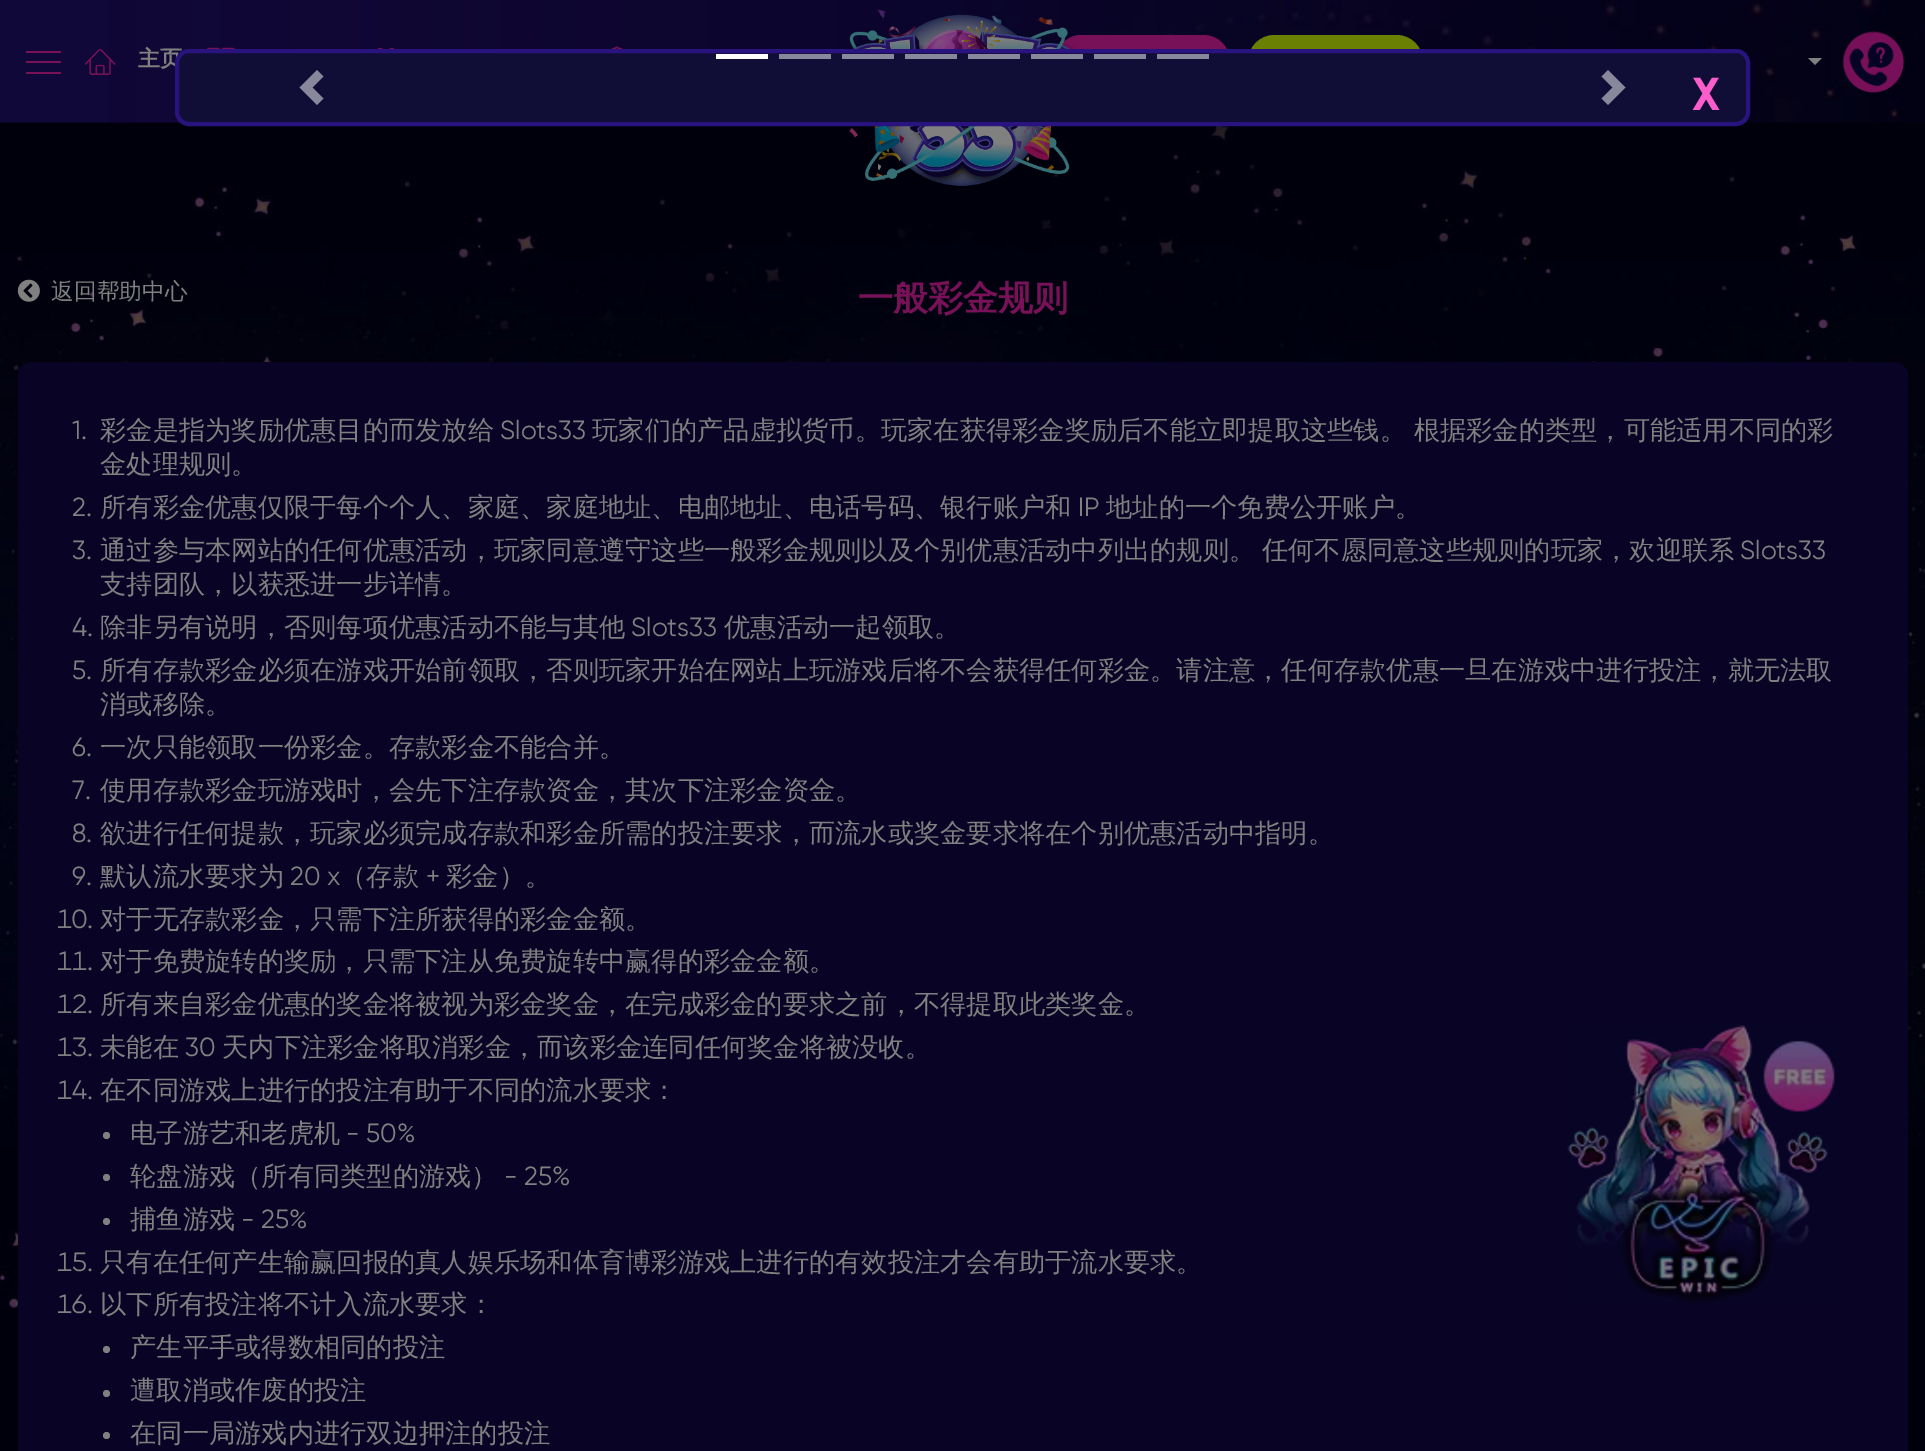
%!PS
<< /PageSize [1925 1451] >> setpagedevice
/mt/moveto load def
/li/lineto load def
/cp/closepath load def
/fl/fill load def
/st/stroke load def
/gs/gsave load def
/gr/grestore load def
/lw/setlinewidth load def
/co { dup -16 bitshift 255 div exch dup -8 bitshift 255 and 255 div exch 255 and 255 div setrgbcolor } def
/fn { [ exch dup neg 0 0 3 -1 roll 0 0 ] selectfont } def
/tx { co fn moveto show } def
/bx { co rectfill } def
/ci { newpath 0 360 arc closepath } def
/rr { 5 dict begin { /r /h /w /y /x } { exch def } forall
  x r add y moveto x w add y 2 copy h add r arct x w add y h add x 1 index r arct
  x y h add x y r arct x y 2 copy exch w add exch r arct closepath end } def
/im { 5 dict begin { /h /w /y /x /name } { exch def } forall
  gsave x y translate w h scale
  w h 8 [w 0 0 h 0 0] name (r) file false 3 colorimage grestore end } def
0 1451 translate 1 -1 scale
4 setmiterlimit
0 0 1925 1451 16#FFFFFF bx
(media/8.raw) 0 122 1925 1237 im
(media/1.raw) 0 0 1925 123 im
26 51 35 2 16#781158 bx
26 61 35 2 16#781158 bx
26 72 35 2 16#781158 bx
(media/2.raw) 84 49 32 26 im
(media/3.raw) 207 47 28 2 im
(media/4.raw) 378 47 17 2 im
(media/5.raw) 611 46 12 3 im
1056 36 173 51 25.5 rr gs fl gr
2 lw
st
(media/6.raw) 847 8 231 178 im
16#6A8002 co
1249 36 173 51 25.5 rr gs fl gr
st
16#808080 co
1808 58 mt 1822 58 li 1815 65 li cp fl
(media/7.raw) 1842 31 62 62 im
0 1359 1925 92 16#00000D bx
(media/9.raw) 17 279 23 23 im
16#090426 co
18 362 1890 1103 14 rr fl
16#808080 co
106.5 1135.5 3.5 ci fl
106.5 1177.5 3.5 ci fl
106.5 1221.5 3.5 ci fl
106.5 1349.5 3.5 ci fl
106.5 1393.5 3.5 ci fl
106.5 1435.5 3.5 ci fl
(media/10.raw) 1567 1025 268 280 im
(主页) 138 66 /WenQuanYiZenHei-Bold 22 16#808080 tx
16#100E37 co
177 51 1571 73 12 rr gs fl gr
16#29137E co
4 lw
st
716 54 52 5 16#FFFFFF bx
779 54 52 5 16#88879B bx
842 54 52 5 16#88879B bx
905 54 52 5 16#88879B bx
968 54 52 5 16#88879B bx
1031 54 52 5 16#88879B bx
1094 54 52 5 16#88879B bx
1157 54 52 5 16#88879B bx
317 70 mt 299.5 87.5 li 317 105 li 323.5 98.5 li 312.5 87.5 li 323.5 76.5 li cp fl
1608 70 mt 1601.5 76.5 li 1612.5 87.5 li 1601.5 98.5 li 1608 105 li 1625.5 87.5 li cp fl
(X) 1692 110 /Gilroy-Bold 46 16#FB5ECA tx
(返回帮助中心) 51 299 /WenQuanYiZenHei-Medium 22.75 16#808080 tx
(一般彩金规则) 858 310 /WenQuanYiZenHei-Bold 35 16#781158 tx
(1.) 72 439 /Gilroy-Regular 26.25 16#808080 tx
(彩金是指为奖励优惠目的而发放给) 100 439 /WenQuanYiZenHei-Medium 26.25 16#808080 tx
(Slots33) 500 439 /Gilroy-Regular 26.25 16#808080 tx
(玩家们的产品虚拟货币。玩家在获得彩金奖励后不能立即提取这些钱。 根据彩金的类型，可能适用不同的彩) 592 439 /WenQuanYiZenHei-Medium 26.25 16#808080 tx
(金处理规则。) 100 473 /WenQuanYiZenHei-Medium 26.25 16#808080 tx
(2.) 72 516 /Gilroy-Regular 26.25 16#808080 tx
(所有彩金优惠仅限于每个个人、家庭、家庭地址、电邮地址、电话号码、银行账户和) 100 516 /WenQuanYiZenHei-Medium 26.25 16#808080 tx
(IP) 1078 516 /Gilroy-Regular 26.25 16#808080 tx
(地址的一个免费公开账户。) 1106 516 /WenQuanYiZenHei-Medium 26.25 16#808080 tx
(3.) 72 559 /Gilroy-Regular 26.25 16#808080 tx
/WenQuanYiZenHei-Medium 26.25 fn
100 559 mt -1 0 32 (通过参与本网站的任何优惠活动，玩家同意遵守这些一般彩金规则以及个别优惠活动中列出的规则。 任何不愿同意这些规则的玩家，欢迎联系) widthshow
(Slots33) 1740 559 /Gilroy-Regular 26.25 16#808080 tx
(支持团队，以获悉进一步详情。) 100 593 /WenQuanYiZenHei-Medium 26.25 16#808080 tx
(4.) 72 636 /Gilroy-Regular 26.25 16#808080 tx
(除非另有说明，否则每项优惠活动不能与其他) 100 636 /WenQuanYiZenHei-Medium 26.25 16#808080 tx
(Slots33) 631 636 /Gilroy-Regular 26.25 16#808080 tx
(优惠活动一起领取。) 724 636 /WenQuanYiZenHei-Medium 26.25 16#808080 tx
(5.) 72 679 /Gilroy-Regular 26.25 16#808080 tx
(所有存款彩金必须在游戏开始前领取，否则玩家开始在网站上玩游戏后将不会获得任何彩金。请注意，任何存款优惠一旦在游戏中进行投注，就无法取) 100 679 /WenQuanYiZenHei-Medium 26.25 16#808080 tx
(消或移除。) 100 713 /WenQuanYiZenHei-Medium 26.25 16#808080 tx
(6.) 72 756 /Gilroy-Regular 26.25 16#808080 tx
(一次只能领取一份彩金。存款彩金不能合并。) 100 756 /WenQuanYiZenHei-Medium 26.25 16#808080 tx
(7.) 72 799 /Gilroy-Regular 26.25 16#808080 tx
(使用存款彩金玩游戏时，会先下注存款资金，其次下注彩金资金。) 100 799 /WenQuanYiZenHei-Medium 26.25 16#808080 tx
(8.) 72 842 /Gilroy-Regular 26.25 16#808080 tx
(欲进行任何提款，玩家必须完成存款和彩金所需的投注要求，而流水或奖金要求将在个别优惠活动中指明。) 100 842 /WenQuanYiZenHei-Medium 26.25 16#808080 tx
(9.) 72 885 /Gilroy-Regular 26.25 16#808080 tx
(默认流水要求为) 100 885 /WenQuanYiZenHei-Medium 26.25 16#808080 tx
(20 x) 290 885 /Gilroy-Regular 26.25 16#808080 tx
(（存款) 340 885 /WenQuanYiZenHei-Medium 26.25 16#808080 tx
(+) 426 885 /Gilroy-Regular 26.25 16#808080 tx
(彩金）。) 446 885 /WenQuanYiZenHei-Medium 26.25 16#808080 tx
(10.) 57 928 /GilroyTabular-Regular 26.25 16#808080 tx
(对于无存款彩金，只需下注所获得的彩金金额。) 100 928 /WenQuanYiZenHei-Medium 26.25 16#808080 tx
(11.) 57 970 /GilroyTabular-Regular 26.25 16#808080 tx
(对于免费旋转的奖励，只需下注从免费旋转中赢得的彩金金额。) 100 970 /WenQuanYiZenHei-Medium 26.25 16#808080 tx
(12.) 57 1013 /GilroyTabular-Regular 26.25 16#808080 tx
(所有来自彩金优惠的奖金将被视为彩金奖金，在完成彩金的要求之前，不得提取此类奖金。) 100 1013 /WenQuanYiZenHei-Medium 26.25 16#808080 tx
(13.) 57 1056 /GilroyTabular-Regular 26.25 16#808080 tx
(未能在) 100 1056 /WenQuanYiZenHei-Medium 26.25 16#808080 tx
(30) 185 1056 /Gilroy-Regular 26.25 16#808080 tx
(天内下注彩金将取消彩金，而该彩金连同任何奖金将被没收。) 222 1056 /WenQuanYiZenHei-Medium 26.25 16#808080 tx
(14.) 57 1099 /GilroyTabular-Regular 26.25 16#808080 tx
(在不同游戏上进行的投注有助于不同的流水要求：) 100 1099 /WenQuanYiZenHei-Medium 26.25 16#808080 tx
(电子游艺和老虎机) 130 1142 /WenQuanYiZenHei-Medium 26.25 16#808080 tx
(- 50%) 346 1142 /Gilroy-Regular 26.25 16#808080 tx
(轮盘游戏（所有同类型的游戏）) 130 1185 /WenQuanYiZenHei-Medium 26.25 16#808080 tx
(- 25%) 504 1185 /Gilroy-Regular 26.25 16#808080 tx
(捕鱼游戏) 130 1228 /WenQuanYiZenHei-Medium 26.25 16#808080 tx
(- 25%) 241 1228 /Gilroy-Regular 26.25 16#808080 tx
(15.) 57 1271 /GilroyTabular-Regular 26.25 16#808080 tx
(只有在任何产生输赢回报的真人娱乐场和体育博彩游戏上进行的有效投注才会有助于流水要求。) 100 1271 /WenQuanYiZenHei-Medium 26.25 16#808080 tx
(16.) 57 1313 /GilroyTabular-Regular 26.25 16#808080 tx
(以下所有投注将不计入流水要求：) 100 1313 /WenQuanYiZenHei-Medium 26.25 16#808080 tx
(产生平手或得数相同的投注) 130 1356 /WenQuanYiZenHei-Medium 26.25 16#808080 tx
(遭取消或作废的投注) 130 1399 /WenQuanYiZenHei-Medium 26.25 16#808080 tx
(在同一局游戏内进行双边押注的投注) 130 1442 /WenQuanYiZenHei-Medium 26.25 16#808080 tx
showpage
